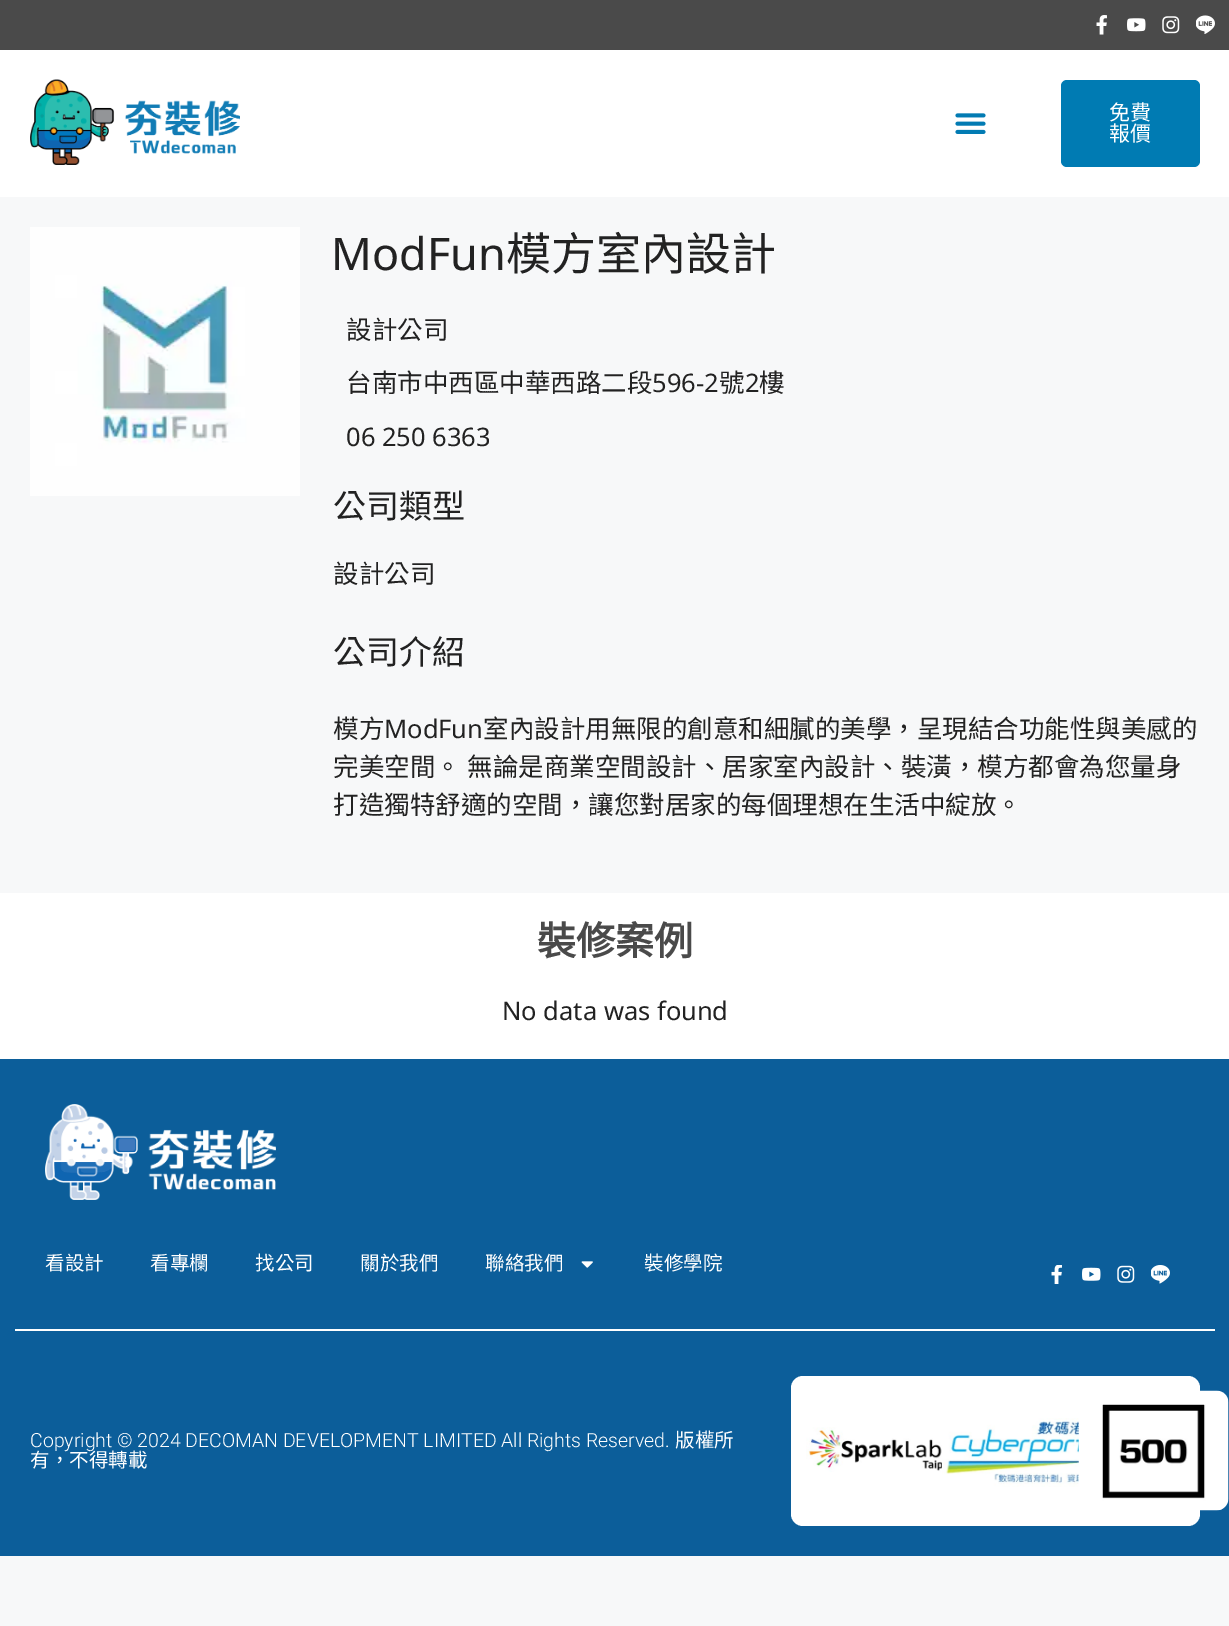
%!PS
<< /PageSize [1229 1626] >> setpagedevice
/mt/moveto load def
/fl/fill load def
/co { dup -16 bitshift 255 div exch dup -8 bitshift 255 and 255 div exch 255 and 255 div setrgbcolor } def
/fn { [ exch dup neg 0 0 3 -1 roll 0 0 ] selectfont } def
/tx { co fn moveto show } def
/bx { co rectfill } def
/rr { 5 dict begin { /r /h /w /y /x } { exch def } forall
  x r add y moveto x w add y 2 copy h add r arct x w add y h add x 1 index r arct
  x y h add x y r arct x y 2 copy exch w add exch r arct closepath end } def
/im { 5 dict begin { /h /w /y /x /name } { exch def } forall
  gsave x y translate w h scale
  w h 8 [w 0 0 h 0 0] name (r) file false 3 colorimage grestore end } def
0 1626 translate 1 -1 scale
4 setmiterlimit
0 0 1229 1626 16#F7F8F9 bx
0 0 1229 50 16#4A4A4A bx
(media/1.raw) 1096 15 11 20 im
(media/2.raw) 1127 18 19 14 im
(media/3.raw) 1162 16 18 18 im
(media/4.raw) 1196 15 19 19 im
0 50 1229 147 16#FFFFFF bx
(media/5.raw) 30 79 210 86 im
(media/6.raw) 955 113 31 21 im
16#007BB3 co
1061 80 139 87 6 rr fl
(media/7.raw) 30 227 270 269 im
0 893 1229 166 16#FFFFFF bx
0 1059 1229 497 16#0C5E9A bx
15 1329 1200 2 16#FFFFFF bx
(media/8.raw) 45 1104 231 96 im
(media/9.raw) 581 1261 12 7 im
(media/10.raw) 1051 1265 11 19 im
(media/11.raw) 1082 1267 19 14 im
(media/12.raw) 1117 1265 18 18 im
(media/13.raw) 1151 1265 19 19 im
791 1376 409 150 12 rr fl
(media/14.raw) 806 1427 136 45 im
(media/15.raw) 942 1418 137 69 im
(media/16.raw) 1078 1390 151 121 im
(免費) 1109 120 /NotoSansCJKTC-Regular 21 16#FFFFFF tx
(報價) 1109 141 /NotoSansCJKTC-Regular 21 16#FFFFFF tx
(ModFun) 331 270 /NotoSans-Regular 45 16#222222 tx
(模方室內設計) 506 270 /NotoSansCJKTC-Regular 45 16#222222 tx
(設計公司) 346 339 /NotoSansCJKTC-Regular 25.5 16#222222 tx
(台南市中西區中華西路二段) 346 392 /NotoSansCJKTC-Regular 25.5 16#222222 tx
(596-2) 652 392 /NotoSans-Regular 25.5 16#222222 tx
(號) 719 392 /NotoSansCJKTC-Regular 25.5 16#222222 tx
(2) 745 392 /NotoSans-Regular 25.5 16#222222 tx
(樓) 759 392 /NotoSansCJKTC-Regular 25.5 16#222222 tx
(06 250 6363) 346 446 /NotoSans-Regular 25.5 16#222222 tx
(公司類型) 333 518 /NotoSansCJKTC-Regular 33 16#222222 tx
(設計公司) 333 583 /NotoSansCJKTC-Regular 25.5 16#222222 tx
(公司介紹) 333 664 /NotoSansCJKTC-Regular 33 16#222222 tx
(模方) 333 738 /NotoSansCJKTC-Regular 25.5 16#222222 tx
(ModFun) 384 738 /NotoSans-Regular 25.5 16#222222 tx
(室內設計用無限的創意和細膩的美學，呈現結合功能性與美感的) 483 738 /NotoSansCJKTC-Regular 25.5 16#222222 tx
333 776 mt 1 0 32 (完美空間。 無論是商業空間設計、居家室內設計、裝潢，模方都會為您量身) widthshow
(打造獨特舒適的空間，讓您對居家的每個理想在生活中綻放。) 333 814 /NotoSansCJKTC-Regular 25.5 16#222222 tx
(裝修案例) 537 955 /NotoSansCJKTC-Bold 39 16#4A4A4A tx
(No data was found) 502 1020 /NotoSans-Regular 25.5 16#222222 tx
(看設計) 45 1270 /NotoSansCJKTC-Regular 19.5 16#FFFFFF tx
(看專欄) 150 1270 /NotoSansCJKTC-Regular 19.5 16#FFFFFF tx
(找公司) 255 1270 /NotoSansCJKTC-Regular 19.5 16#FFFFFF tx
(關於我們) 360 1270 /NotoSansCJKTC-Regular 19.5 16#FFFFFF tx
(聯絡我們) 485 1270 /NotoSansCJKTC-Regular 19.5 16#FFFFFF tx
(裝修學院) 644 1270 /NotoSansCJKTC-Regular 19.5 16#FFFFFF tx
(Copyright © 2024 DECOMAN DEVELOPMENT LIMITED All Rights Reserved.) 30 1447 /Roboto-Light 19.5 16#FFFFFF tx
(版權所) 675 1447 /NotoSansCJKTC-Regular 19.5 16#FFFFFF tx
(有，不得轉載) 30 1467 /NotoSansCJKTC-Regular 19.5 16#FFFFFF tx
showpage
